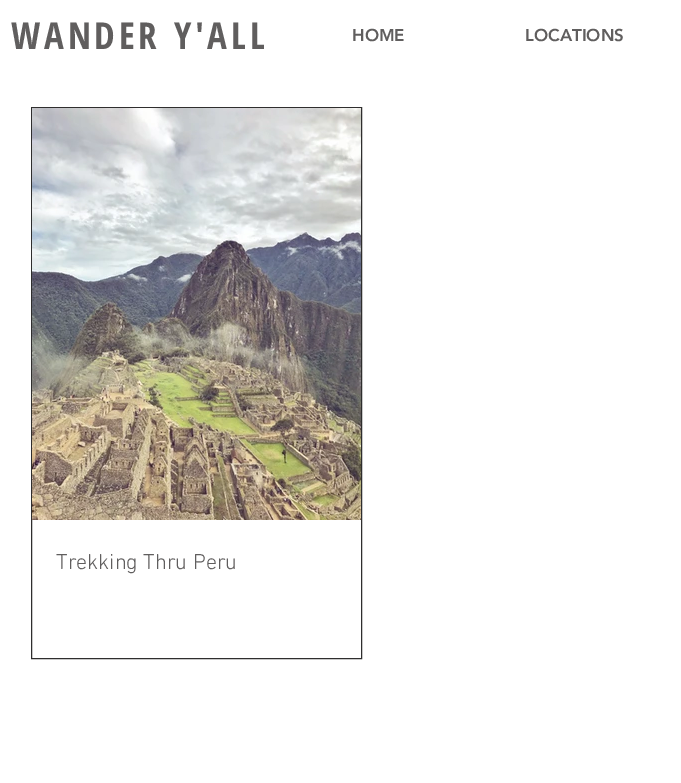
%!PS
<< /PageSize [681 783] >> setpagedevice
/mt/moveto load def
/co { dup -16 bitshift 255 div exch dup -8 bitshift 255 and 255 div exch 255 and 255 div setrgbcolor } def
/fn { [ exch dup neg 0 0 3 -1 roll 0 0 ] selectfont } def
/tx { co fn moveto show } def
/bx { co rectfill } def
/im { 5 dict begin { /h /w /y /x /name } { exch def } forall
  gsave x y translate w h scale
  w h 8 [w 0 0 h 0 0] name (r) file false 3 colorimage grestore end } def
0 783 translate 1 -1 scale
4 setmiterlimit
0 0 681 783 16#FFFFFF bx
16#2F2E2E co
31.5 107.5 330 551 rectstroke
(media/1.raw) 32 108 329 412 im
/OpenSansCondensed-Bold 37 fn
16#605E5E co
11 49 mt 3.75 0 (WANDER Y'ALL) ashow
(HOME) 352 41 /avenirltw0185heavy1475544-Black 17 16#605E5E tx
(LOCATIONS) 525 41 /avenirltw0185heavy1475544-Black 17 16#605E5E tx
(Trekking Thru Peru) 56 569 /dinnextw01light-Light 22 16#605E5E tx
showpage
